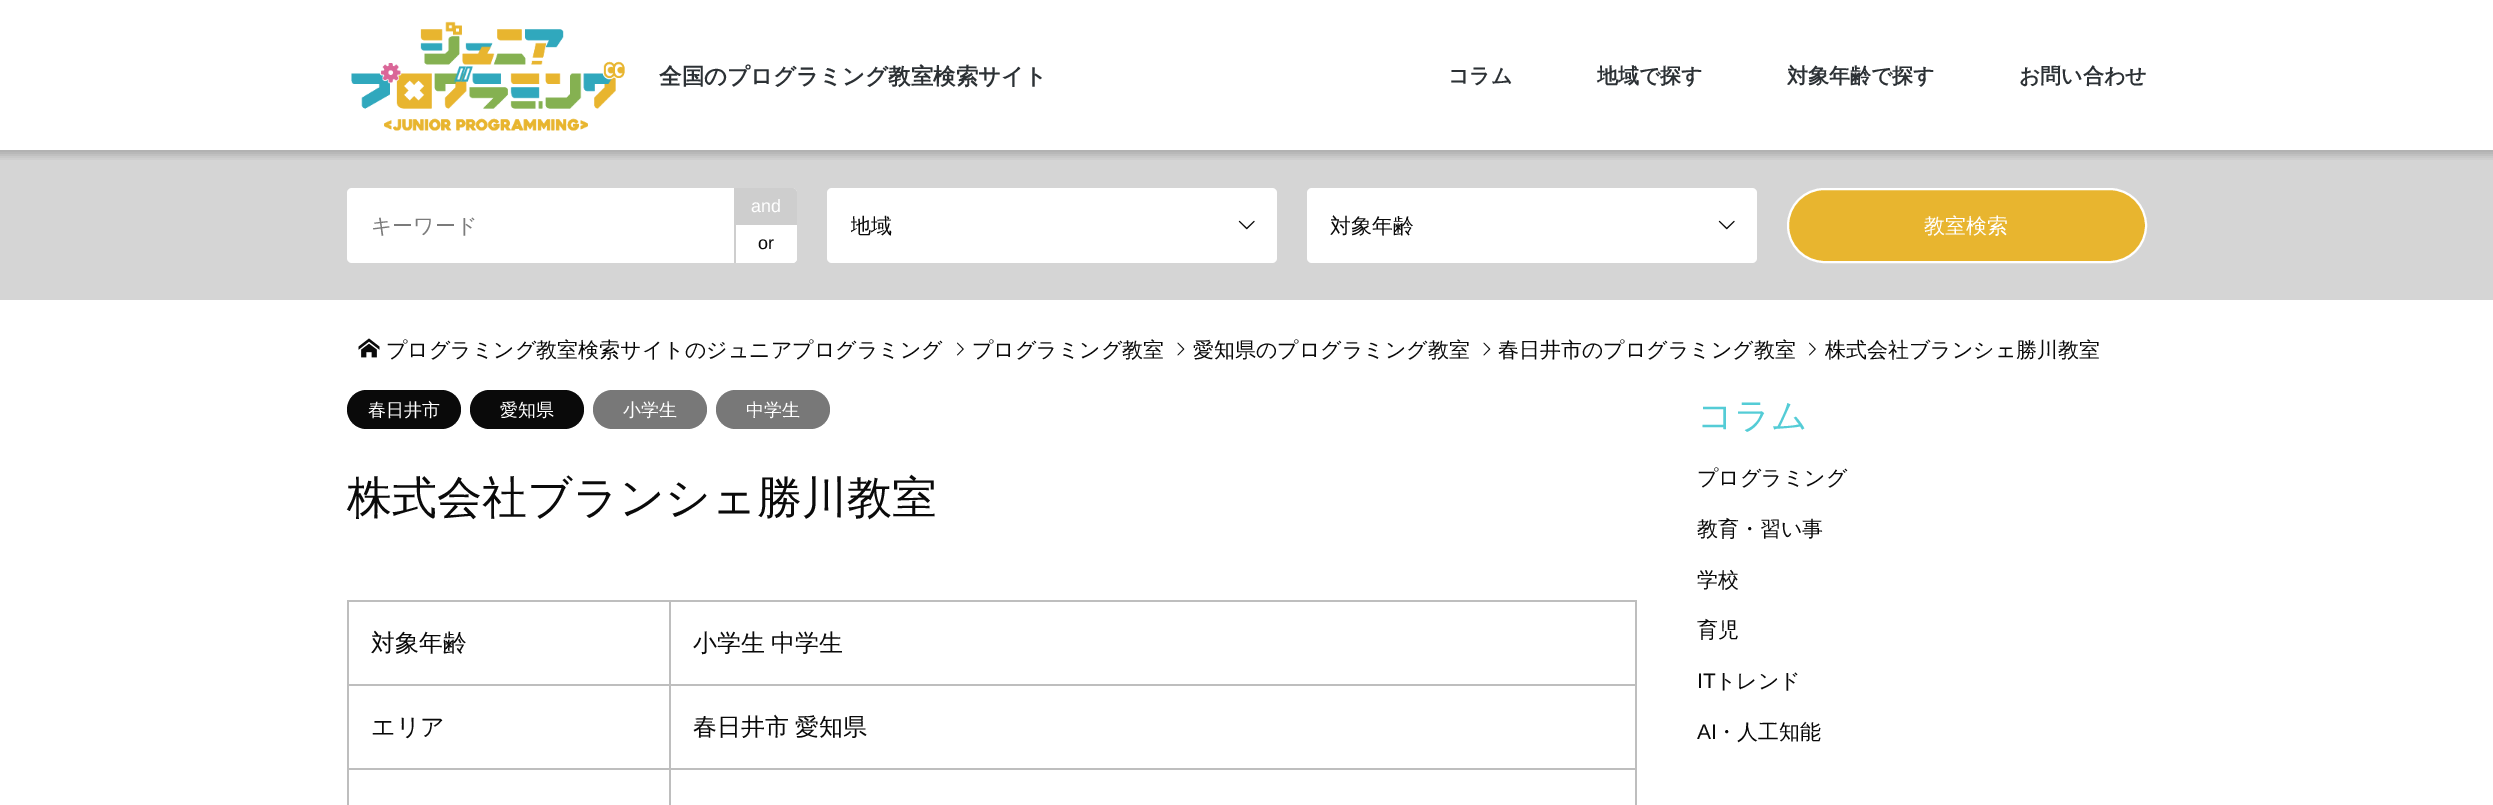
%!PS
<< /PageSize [2493 805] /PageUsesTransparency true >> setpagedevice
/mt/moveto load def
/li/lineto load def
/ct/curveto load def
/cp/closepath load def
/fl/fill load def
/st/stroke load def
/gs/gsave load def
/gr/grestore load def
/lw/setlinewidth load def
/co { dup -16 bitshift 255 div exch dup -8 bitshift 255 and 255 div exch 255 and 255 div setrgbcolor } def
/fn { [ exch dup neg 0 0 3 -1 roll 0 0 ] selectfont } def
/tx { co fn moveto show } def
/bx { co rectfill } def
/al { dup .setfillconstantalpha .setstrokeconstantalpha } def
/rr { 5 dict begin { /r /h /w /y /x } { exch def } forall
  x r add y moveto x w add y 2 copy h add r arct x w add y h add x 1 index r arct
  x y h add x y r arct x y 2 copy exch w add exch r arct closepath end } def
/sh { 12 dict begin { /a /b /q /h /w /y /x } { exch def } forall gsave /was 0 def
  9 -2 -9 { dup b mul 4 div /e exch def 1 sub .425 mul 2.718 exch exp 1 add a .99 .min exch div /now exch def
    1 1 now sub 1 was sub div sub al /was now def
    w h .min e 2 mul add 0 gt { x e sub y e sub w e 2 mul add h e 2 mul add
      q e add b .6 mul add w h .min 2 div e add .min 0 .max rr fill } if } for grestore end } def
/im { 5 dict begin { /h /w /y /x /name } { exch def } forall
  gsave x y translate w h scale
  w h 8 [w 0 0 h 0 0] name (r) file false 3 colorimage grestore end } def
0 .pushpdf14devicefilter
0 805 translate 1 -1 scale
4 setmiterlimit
0 0 2493 805 16#FFFFFF bx
0 150 2493 150 16#D5D5D5 bx
gs
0 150 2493 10 rectclip
16#0A0A0A co
-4 -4 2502 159 0 4 .2 sh
gr
(media/1.raw) 351 21 274 110 im
16#FFFFFF co
347 188 450 75 5 rr fl
16#CECECE co
734 188 mt 792 188 li 795 188 797 190 797 193 ct 797 225 li 734 225 li cp fl
16#FFFFFF co
734 225 mt 797 225 li 797 258 li 797 261 795 263 792 263 ct 734 263 li cp fl
734 225 2 38 16#CECECE bx
16#FFFFFF co
827 188 450 75 5 rr fl
(media/2.raw) 1238 220 17 10 im
1307 188 450 75 5 rr fl
(media/2.raw) 1718 220 17 10 im
16#E8B52F co
1788 189 358 73 36.5 rr gs fl gr
16#FFFFFF co
2 lw
st
(media/3.raw) 358 338 22 20 im
(media/4.raw) 957 342 7 14 im
(media/5.raw) 1177 342 8 14 im
(media/5.raw) 1483 342 8 14 im
(media/4.raw) 1809 342 7 14 im
16#0A0A0A co
347 390 114 39 19.5 rr fl
470 390 114 39 19.5 rr fl
16#787878 co
593 390 114 39 19.5 rr fl
716 390 114 39 19.5 rr fl
669 600 968 2 16#BEBEBE bx
669 684 968 2 16#BEBEBE bx
669 768 968 2 16#BEBEBE bx
669 768 2 37 16#BEBEBE bx
347 768 324 2 16#BEBEBE bx
669 684 2 86 16#BEBEBE bx
347 684 324 2 16#BEBEBE bx
669 600 2 86 16#BEBEBE bx
347 600 324 2 16#BEBEBE bx
347 768 2 37 16#BEBEBE bx
347 684 2 86 16#BEBEBE bx
347 600 2 86 16#BEBEBE bx
1635 768 2 37 16#BEBEBE bx
1635 684 2 86 16#BEBEBE bx
1635 600 2 86 16#BEBEBE bx
(全国のプログラミング教室検索サイト) 659 84 /WenQuanYiZenHei-Bold 22.5 16#2C3135 tx
(コラム) 1448 83 /WenQuanYiZenHei-Bold 21 16#2C3135 tx
(地域で探す) 1597 83 /WenQuanYiZenHei-Bold 21 16#2C3135 tx
(対象年齢で探す) 1787 83 /WenQuanYiZenHei-Bold 21 16#2C3135 tx
(お問い合わせ) 2019 83 /WenQuanYiZenHei-Bold 21 16#2C3135 tx
(キーワード) 371 233 /WenQuanYiZenHei-Medium 21 16#7B7B7B tx
(and) 751 212 /LiberationSans-Regular 18 16#FFFFFF tx
(or) 758 249 /LiberationSans-Regular 18 16#0A0A0A tx
gs
851 188 378 75 rectclip
(地域) 850 233 /WenQuanYiZenHei-Medium 21 16#0A0A0A tx
gr
(対象年齢) 1330 233 /WenQuanYiZenHei-Medium 21 16#0A0A0A tx
(教室検索) 1924 233 /WenQuanYiZenHei-Medium 21 16#FFFFFF tx
(プログラミング教室検索サイトのジュニアプログラミング) 386 357 /WenQuanYiZenHei-Medium 21 16#0A0A0A tx
(プログラミング教室) 972 357 /WenQuanYiZenHei-Medium 21 16#0A0A0A tx
(愛知県のプログラミング教室) 1193 357 /WenQuanYiZenHei-Medium 21 16#0A0A0A tx
(春日井市のプログラミング教室) 1498 357 /WenQuanYiZenHei-Medium 21 16#0A0A0A tx
(株式会社ブランシェ勝川教室) 1825 357 /WenQuanYiZenHei-Medium 21 16#0A0A0A tx
(春日井市) 368 416 /WenQuanYiZenHei-Medium 18 16#FFFFFF tx
(愛知県) 500 416 /WenQuanYiZenHei-Medium 18 16#FFFFFF tx
(小学生) 623 416 /WenQuanYiZenHei-Medium 18 16#FFFFFF tx
(中学生) 746 416 /WenQuanYiZenHei-Medium 18 16#FFFFFF tx
(株式会社ブランシェ勝川教室) 347 513 /WenQuanYiZenHei-Medium 45 16#0A0A0A tx
(対象年齢) 371 651 /WenQuanYiZenHei-Medium 24 16#0A0A0A tx
(小学生) 693 651 /WenQuanYiZenHei-Medium 24 16#0A0A0A tx
(中学生) 771 651 /WenQuanYiZenHei-Medium 24 16#0A0A0A tx
(エリア) 371 735 /WenQuanYiZenHei-Medium 24 16#0A0A0A tx
(春日井市) 693 735 /WenQuanYiZenHei-Medium 24 16#0A0A0A tx
(愛知県) 795 735 /WenQuanYiZenHei-Medium 24 16#0A0A0A tx
(コラム) 1697 428 /WenQuanYiZenHei-Medium 36 16#54CCD6 tx
(プログラミング) 1697 485 /WenQuanYiZenHei-Medium 21 16#0A0A0A tx
(教育・習い事) 1697 536 /WenQuanYiZenHei-Medium 21 16#0A0A0A tx
(学校) 1697 587 /WenQuanYiZenHei-Medium 21 16#0A0A0A tx
(育児) 1697 637 /WenQuanYiZenHei-Medium 21 16#0A0A0A tx
(IT) 1697 688 /LiberationSans-Regular 21 16#0A0A0A tx
(トレンド) 1715 688 /WenQuanYiZenHei-Medium 21 16#0A0A0A tx
(AI) 1697 739 /LiberationSans-Regular 21 16#0A0A0A tx
(・人工知能) 1716 739 /WenQuanYiZenHei-Medium 21 16#0A0A0A tx
.poppdf14devicefilter showpage
